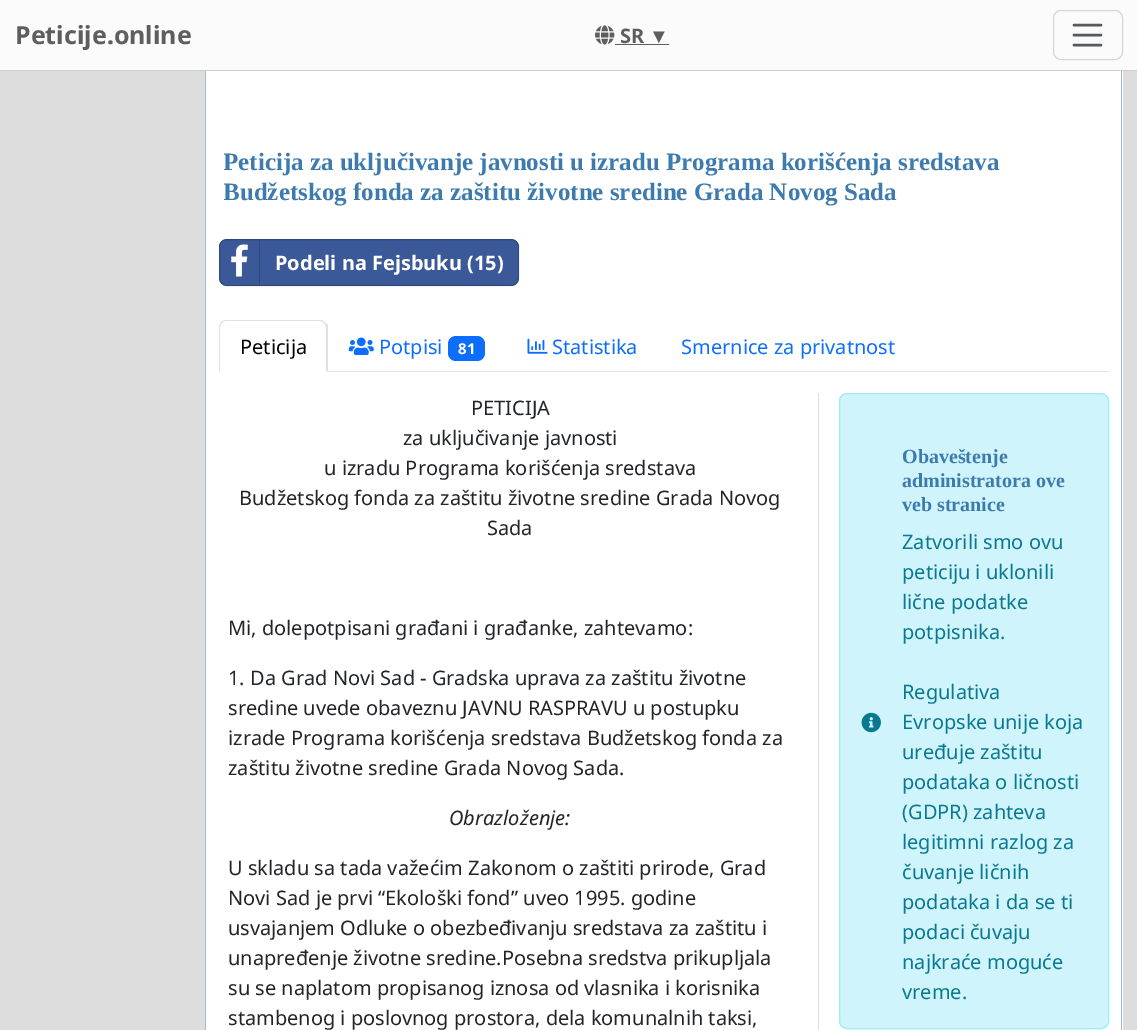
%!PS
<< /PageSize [1137 1030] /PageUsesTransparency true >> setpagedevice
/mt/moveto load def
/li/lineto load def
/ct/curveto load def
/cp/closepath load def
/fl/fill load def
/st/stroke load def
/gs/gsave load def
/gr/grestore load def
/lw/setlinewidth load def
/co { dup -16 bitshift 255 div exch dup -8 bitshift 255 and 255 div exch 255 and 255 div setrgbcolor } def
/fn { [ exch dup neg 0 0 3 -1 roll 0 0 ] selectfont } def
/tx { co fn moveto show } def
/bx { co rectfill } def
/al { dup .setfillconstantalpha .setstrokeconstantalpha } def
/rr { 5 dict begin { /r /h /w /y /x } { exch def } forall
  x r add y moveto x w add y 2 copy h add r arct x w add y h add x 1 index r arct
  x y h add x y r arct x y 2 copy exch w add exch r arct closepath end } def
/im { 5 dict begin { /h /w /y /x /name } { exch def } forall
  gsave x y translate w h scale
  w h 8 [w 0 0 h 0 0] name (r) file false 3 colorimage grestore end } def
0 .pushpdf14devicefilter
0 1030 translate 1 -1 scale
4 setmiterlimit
0 0 1137 1030 16#DDDDDD bx
0 0 1137 70 16#FBFBFB bx
0 70 1137 1 16#CCCCCC bx
(media/1.raw) 595 25 20 20 im
615 44 54 1 16#5E5E5E bx
16#D5D5D5 co
1053.5 10.5 69 49 7.5 rr st
16#585B5E co
2.5 lw
1 setlinecap
1074 25 mt 1101 25 li 1074 35 mt 1101 35 li 1074 45 mt 1101 45 li st
206 71 917 959 16#FFFFFF bx
16#95BCE2 co
205 71 mt 1122 71 li 1122 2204 li 1122 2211 1116 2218 1109 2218 ct 219 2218 li 211 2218 205 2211 205 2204 ct cp 206 71 mt 1121 71 li 1121 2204 li 1121 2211 1116 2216 1109 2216 ct 219 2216 li 212 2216 206 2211 206 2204 ct cp eofill
16#3B5998 co
219 239 300 47 8 rr fl
0.2 al
16#000000 co
1 lw
0 setlinecap
219.5 239.5 299 46 7.5 rr st
1 al
259 240 1 45 16#2F477A bx
(media/2.raw) 231 244 17 33 im
328 371 781 1 16#DEE2E6 bx
226 320 mt 224 320 222 321 221 322 ct 222 323 li 223 322 224 321 226 321 ct 320 321 li 322 321 323 322 324 323 ct 325 322 li 324 321 322 320 320 320 ct cp fl
328 372 mt 326 371 li 326 328 li 326 326 325 324 324 323 ct 325 322 li 328 325 li cp fl
16#FFFFFF co
327 372 mt 219 372 li 220 371 li 326 371 li cp fl
16#DEE2E6 co
221 322 mt 220 324 219 326 219 328 ct 219 372 li 220 371 li 220 328 li 220 326 221 324 222 323 ct cp fl
(media/3.raw) 348 337 26 18 im
16#0D6EFD co
448 336 37 25 8 rr fl
(media/4.raw) 527 338 21 16 im
818 393 1 637 16#DDDDDD bx
16#CFF4FC co
839.5 393.5 269 635 7.5 rr gs fl gr
16#9EEAF9 co
st
(media/5.raw) 861 712 20 21 im
(Peticije.online) 15 44 /NotoSans-Bold 25 16#5E5E5E tx
(SR) 620 43 /NotoSans-Bold 20 16#5E5E5E tx
(▼) 649 43 /LiberationSans-Regular 20 16#5E5E5E tx
gs
224 146 885 60 rectclip
(Peticija za uključivanje javnosti u izradu Programa korišćenja sredstava) 223 170 /LiberationSerif-Bold 25 16#3D7BAE tx
(Budžetskog fonda za zaštitu životne sredine Grada Novog Sada) 223 200 /LiberationSerif-Bold 25 16#3D7BAE tx
gr
(Podeli na Fejsbuku \(15\)) 275 270 /NotoSans-Bold 20 16#FFFFFF tx
(Peticija) 240 354 /NotoSans-Regular 20 16#000000 tx
(Potpisi) 379 354 /NotoSans-Regular 20 16#0D6EFD tx
(81) 458 354 /NotoSans-Bold 15 16#FFFFFF tx
(Statistika) 552 354 /NotoSans-Regular 20 16#0D6EFD tx
(Smernice za privatnost) 681 354 /NotoSans-Regular 20 16#0D6EFD tx
(PETICIJA) 471 415 /NotoSans-Regular 20 16#212529 tx
(za uključivanje javnosti) 403 445 /NotoSans-Regular 20 16#212529 tx
(u izradu Programa korišćenja sredstava) 324 475 /NotoSans-Regular 20 16#212529 tx
(Budžetskog fonda za zaštitu životne sredine Grada Novog) 239 505 /NotoSans-Regular 20 16#212529 tx
(Sada) 487 535 /NotoSans-Regular 20 16#212529 tx
(Mi, dolepotpisani građani i građanke, zahtevamo:) 228 635 /NotoSans-Regular 20 16#212529 tx
(1. Da Grad Novi Sad - Gradska uprava za zaštitu životne) 228 685 /NotoSans-Regular 20 16#212529 tx
(sredine uvede obaveznu JAVNU RASPRAVU u postupku) 228 715 /NotoSans-Regular 20 16#212529 tx
(izrade Programa korišćenja sredstava Budžetskog fonda za) 228 745 /NotoSans-Regular 20 16#212529 tx
(zaštitu životne sredine Grada Novog Sada.) 228 775 /NotoSans-Regular 20 16#212529 tx
(Obrazloženje:) 449 825 /NotoSans-Italic 20 16#212529 tx
(U skladu sa tada važećim Zakonom o zaštiti prirode, Grad) 228 875 /NotoSans-Regular 20 16#212529 tx
(Novi Sad je prvi “Ekološki fond” uveo 1995. godine) 228 905 /NotoSans-Regular 20 16#212529 tx
(usvajanjem Odluke o obezbeđivanju sredstava za zaštitu i) 228 935 /NotoSans-Regular 20 16#212529 tx
(unapređenje životne sredine.Posebna sredstva prikupljala) 228 965 /NotoSans-Regular 20 16#212529 tx
(su se naplatom propisanog iznosa od vlasnika i korisnika) 228 995 /NotoSans-Regular 20 16#212529 tx
(stambenog i poslovnog prostora, dela komunalnih taksi,) 228 1025 /NotoSans-Regular 20 16#212529 tx
(Obaveštenje) 902 463 /LiberationSerif-Bold 20 16#3D7BAE tx
(administratora ove) 902 487 /LiberationSerif-Bold 20 16#3D7BAE tx
(veb stranice) 902 511 /LiberationSerif-Bold 20 16#3D7BAE tx
(Zatvorili smo ovu) 902 549 /NotoSans-Regular 20 16#087990 tx
(peticiju i uklonili) 902 579 /NotoSans-Regular 20 16#087990 tx
(lične podatke) 902 609 /NotoSans-Regular 20 16#087990 tx
(potpisnika.) 902 639 /NotoSans-Regular 20 16#087990 tx
(Regulativa) 902 699 /NotoSans-Regular 20 16#087990 tx
(Evropske unije koja) 902 729 /NotoSans-Regular 20 16#087990 tx
(uređuje zaštitu) 902 759 /NotoSans-Regular 20 16#087990 tx
(podataka o ličnosti) 902 789 /NotoSans-Regular 20 16#087990 tx
(\(GDPR\) zahteva) 902 819 /NotoSans-Regular 20 16#087990 tx
(legitimni razlog za) 902 849 /NotoSans-Regular 20 16#087990 tx
(čuvanje ličnih) 902 879 /NotoSans-Regular 20 16#087990 tx
(podataka i da se ti) 902 909 /NotoSans-Regular 20 16#087990 tx
(podaci čuvaju) 902 939 /NotoSans-Regular 20 16#087990 tx
(najkraće moguće) 902 969 /NotoSans-Regular 20 16#087990 tx
(vreme.) 902 999 /NotoSans-Regular 20 16#087990 tx
.poppdf14devicefilter showpage
